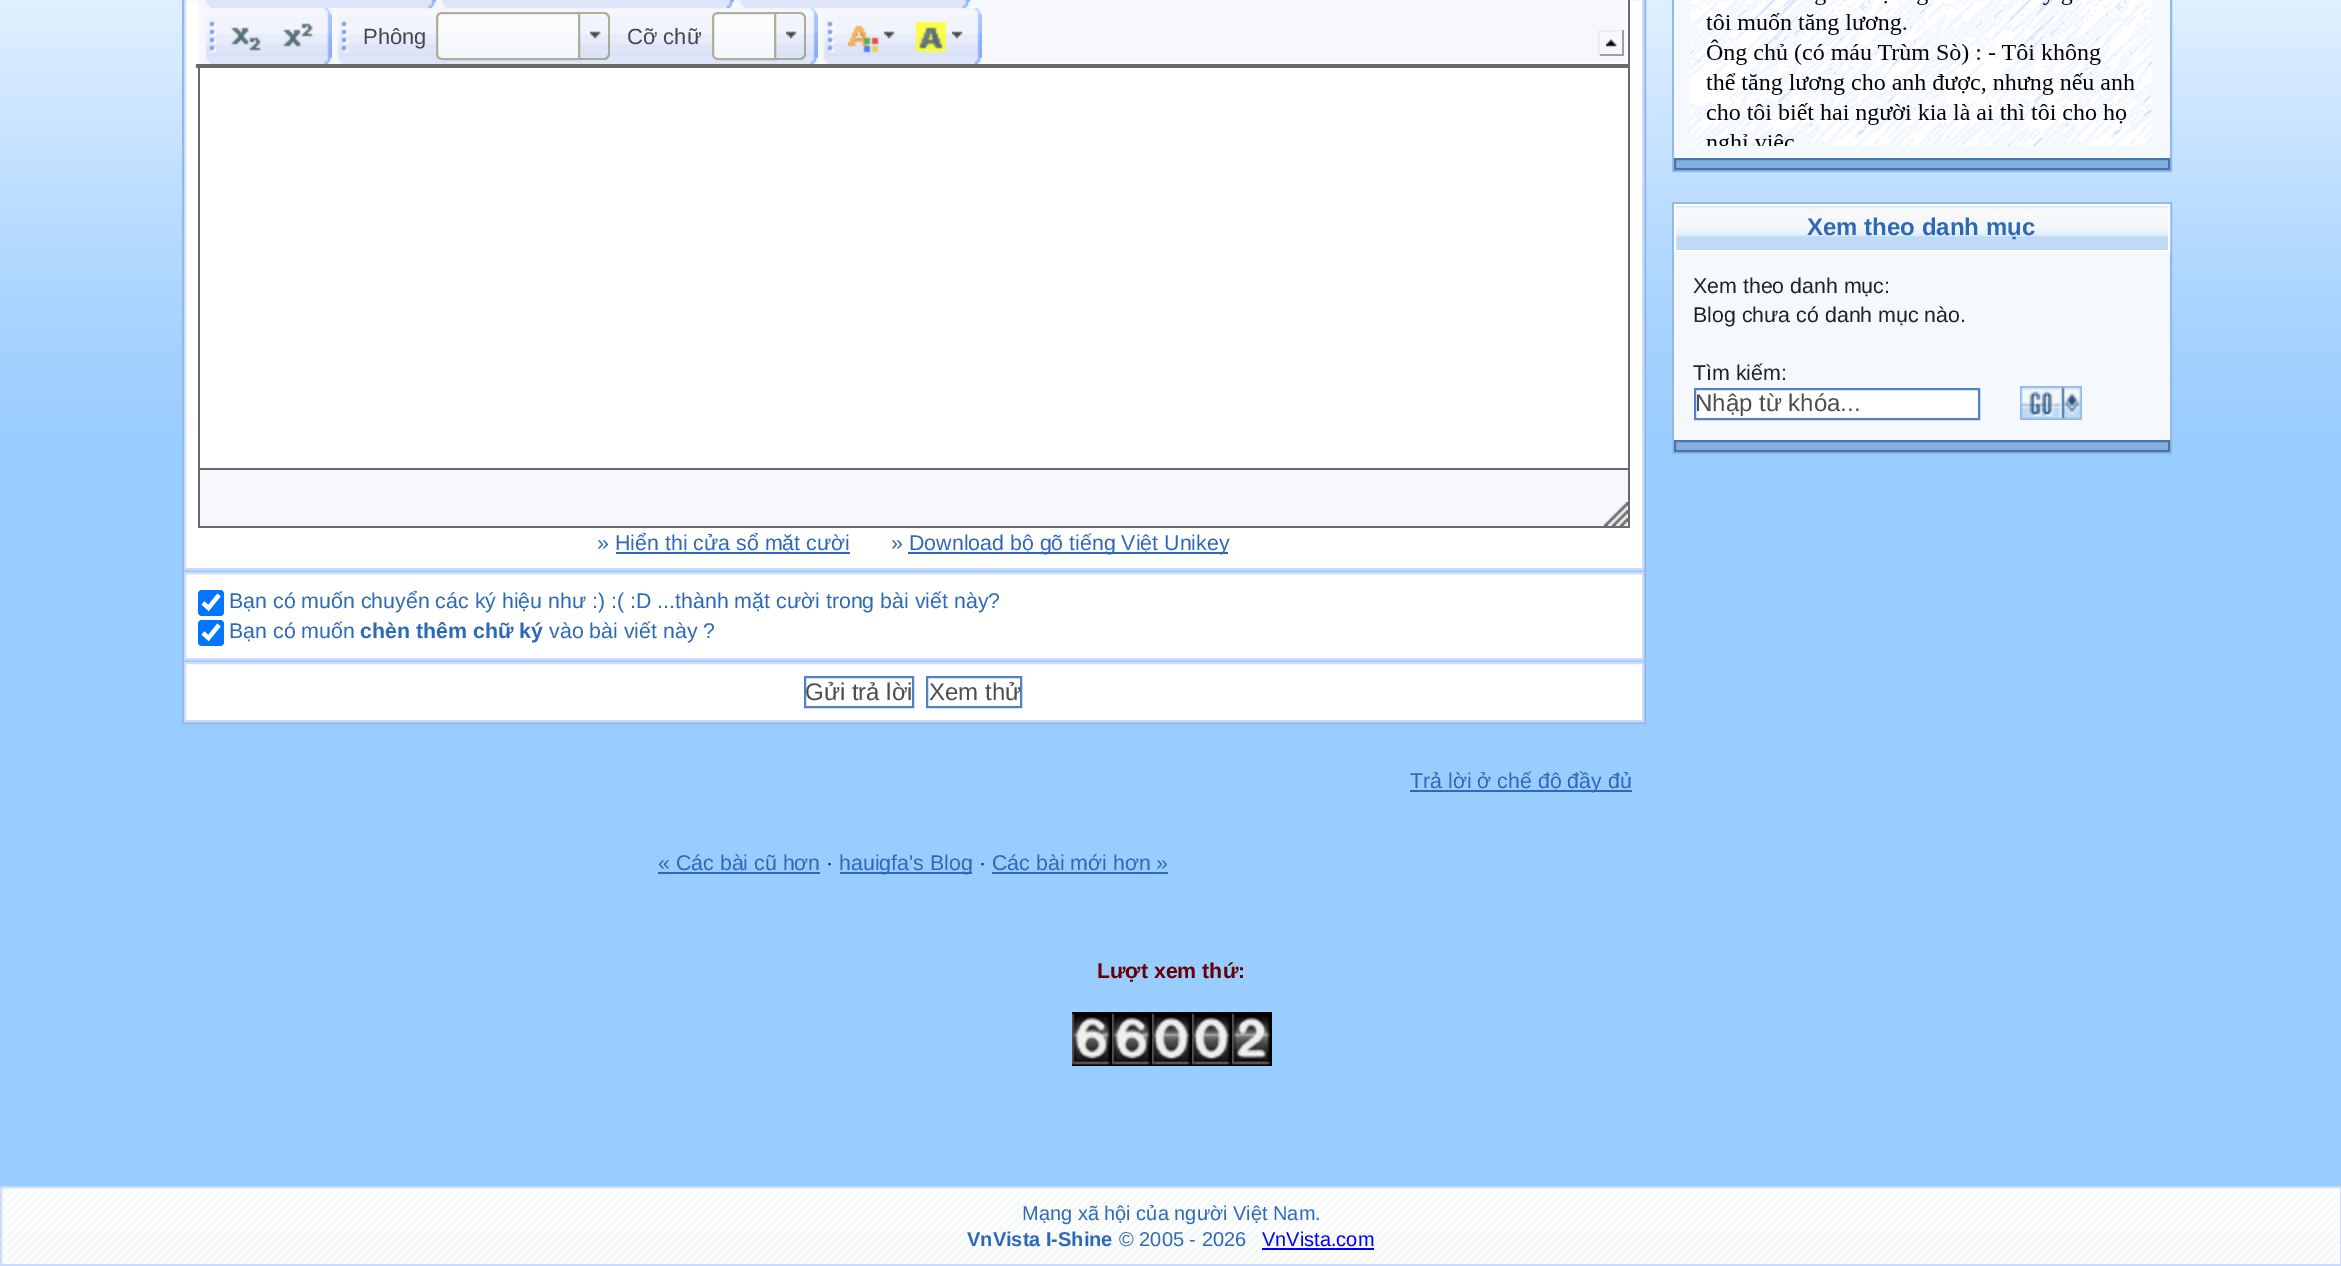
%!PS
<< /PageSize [2341 1266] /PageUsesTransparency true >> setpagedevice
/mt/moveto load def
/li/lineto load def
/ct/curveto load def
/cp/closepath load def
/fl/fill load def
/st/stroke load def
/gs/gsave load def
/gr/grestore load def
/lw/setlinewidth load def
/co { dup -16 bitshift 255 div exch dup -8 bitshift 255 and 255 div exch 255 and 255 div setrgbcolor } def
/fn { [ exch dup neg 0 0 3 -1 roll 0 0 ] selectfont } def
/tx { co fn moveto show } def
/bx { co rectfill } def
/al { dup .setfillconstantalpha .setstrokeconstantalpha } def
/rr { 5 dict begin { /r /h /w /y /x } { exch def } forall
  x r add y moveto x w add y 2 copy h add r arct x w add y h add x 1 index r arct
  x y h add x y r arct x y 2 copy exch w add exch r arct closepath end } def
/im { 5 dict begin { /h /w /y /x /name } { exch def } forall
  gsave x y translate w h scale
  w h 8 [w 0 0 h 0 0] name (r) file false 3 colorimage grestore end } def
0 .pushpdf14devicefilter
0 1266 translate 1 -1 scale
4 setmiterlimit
0 0 2341 1266 16#FFFFFF bx
(media/1.raw) 0 0 2341 1186 im
16#92BAE6 co
2 lw
183 -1 1462 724 rectstroke
16#FFFFFF co
185 -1 mt 1643 -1 li 1643 569 li 185 569 li cp gs fl gr
16#CEDCFA co
st
200 470 1428 56 16#F7F8FD bx
1628 0 2 528 16#696969 bx
198 526 1432 2 16#696969 bx
198 468 2 60 16#696969 bx
(media/2.raw) 1604 502 24 24 im
209 0 1417 62 16#F7F8FD bx
198 468 1432 2 16#696969 bx
198 64 2 406 16#696969 bx
198 0 2 66 16#FAFAF5 bx
196 64 1434 4 16#696969 bx
200 0 770 8 16#DEE5F8 bx
(media/3.raw) 200 0 11 8 im
(media/4.raw) 428 0 8 8 im
(media/3.raw) 436 0 11 8 im
(media/4.raw) 726 0 8 8 im
(media/3.raw) 734 0 11 8 im
(media/4.raw) 962 0 8 8 im
(media/5.raw) 205 8 124 56 im
(media/6.raw) 200 8 17 56 im
(media/7.raw) 231 27 30 24 im
(media/8.raw) 283 23 30 24 im
(media/9.raw) 324 8 8 56 im
(media/10.raw) 337 8 478 56 im
(media/6.raw) 332 8 17 56 im
0.7 al
16#FFFFFF co
442 12 mt 580 12 li 580 60 li 442 60 li 438.5 60 436 57.5 436 54 ct 436 18 li 436 14.5 438.5 12 442 12 ct cp fl
16#8F8F73 co
442 13 mt 579 13 li 579 59 li 442 59 li 439 59 437 57 437 54 ct 437 18 li 437 15 439 13 442 13 ct cp st
1 al
(media/11.raw) 590 31 11 8 im
0.7 al
580 12 mt 604 12 li 607 12 610 15 610 18 ct 610 54 li 610 57 607 60 604 60 ct 580 60 li cp 580 14 mt 604 14 li 606 14 608 16 608 18 ct 608 54 li 608 56 606 58 604 58 ct 580 58 li cp eofill
16#FFFFFF co
718 12 mt 776 12 li 776 60 li 718 60 li 714.5 60 712 57.5 712 54 ct 712 18 li 712 14.5 714.5 12 718 12 ct cp fl
16#8F8F73 co
718 13 mt 775 13 li 775 59 li 718 59 li 715 59 713 57 713 54 ct 713 18 li 713 15 715 13 718 13 ct cp st
1 al
(media/11.raw) 786 31 11 8 im
0.7 al
776 12 mt 800 12 li 803 12 806 15 806 18 ct 806 54 li 806 57 803 60 800 60 ct 776 60 li cp 776 14 mt 800 14 li 802 14 804 16 804 18 ct 804 54 li 804 56 802 58 800 58 ct 776 58 li cp eofill
1 al
(media/9.raw) 810 8 8 56 im
(media/12.raw) 823 8 156 56 im
(media/6.raw) 818 8 17 56 im
(media/13.raw) 848 25 31 28 im
(media/11.raw) 884 31 11 8 im
(media/14.raw) 916 22 31 31 im
(media/11.raw) 952 31 11 8 im
(media/9.raw) 974 8 8 56 im
(media/15.raw) 1606 39 11 8 im
1598 30 26 2 16#EEEEEE bx
1622 30 2 26 16#9F9F9F bx
1598 54 26 2 16#9F9F9F bx
1598 30 2 26 16#EEEEEE bx
616 552 234 2 16#2D69B9 bx
908 552 320 2 16#2D69B9 bx
16#FFFFFF co
185 573 mt 1643 573 li 1643 659 li 185 659 li cp gs fl gr
16#CEDCFA co
st
16#0075FF co
198 590 26 26 4 rr fl
16#FFFFFF co
4.2 lw
203 603 mt 208.5 608 li 219 595 li st
16#0075FF co
198 620 26 26 4 rr fl
16#FFFFFF co
203 633 mt 208.5 638 li 219 625 li st
185 663 mt 1643 663 li 1643 721 li 185 721 li cp gs fl gr
16#CEDCFA co
2 lw
st
16#5182C2 co
805 677 108 30 rectstroke
927 677 94 30 rectstroke
1410 790 222 2 16#2D69B9 bx
658 872 162 2 16#2D69B9 bx
840 872 132 2 16#2D69B9 bx
992 872 176 2 16#2D69B9 bx
16#92BAE6 co
1673 -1 498 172 rectstroke
1674 0 496 158 16#F5F9FD bx
(media/16.raw) 1690 0 462 146 im
16#84AFDE co
1675 159 mt 2169 159 li 2169 169 li 1675 169 li cp gs fl gr
16#4775A7 co
st
16#92BAE6 co
1673 203 498 250 rectstroke
(media/17.raw) 1676 206 492 44 im
16#FFFFFF co
1675 205 494 46 rectstroke
1674 252 496 188 16#F5F9FD bx
16#FFFFFF co
1695 389 mt 1979 389 li 1979 419 li 1695 419 li cp gs fl gr
16#5182C2 co
st
(media/18.raw) 2020 386 62 34 im
16#84AFDE co
1675 441 mt 2169 441 li 2169 451 li 1675 451 li cp gs fl gr
16#4775A7 co
st
(media/19.raw) 1072 1012 40 54 im
(media/19.raw) 1112 1012 40 54 im
(media/20.raw) 1152 1012 40 54 im
(media/20.raw) 1192 1012 40 54 im
(media/21.raw) 1232 1012 40 54 im
(media/22.raw) 2 1188 2338 76 im
16#CEDCFA co
1 1187 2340 78 rectstroke
1262 1248 112 2 16#0000FF bx
(Phông) 363 44 /LiberationSans-Regular 22 16#46474B tx
(Cỡ chữ) 627 44 /LiberationSans-Regular 22 16#46474B tx
(») 597 550 /LiberationSans-Regular 21.35 16#2D69B9 tx
(Hiển thị cửa sổ mặt cười) 615 550 /LiberationSans-Regular 21.35 16#2D69B9 tx
(») 891 550 /LiberationSans-Regular 21.35 16#2D69B9 tx
(Download bộ gõ tiếng Việt Unikey) 909 550 /LiberationSans-Regular 21.35 16#2D69B9 tx
(Bạn có muốn chuyển các ký hiệu như :\) :\( :D ...thành mặt cười trong bài viết này?) 229 608 /LiberationSans-Regular 21.35 16#2D69B9 tx
(Bạn có muốn) 229 638 /LiberationSans-Regular 21.35 16#2D69B9 tx
(chèn thêm chữ ký) 360 638 /LiberationSans-Bold 21.35 16#2D69B9 tx
(vào bài viết này ?) 549 638 /LiberationSans-Regular 21.35 16#2D69B9 tx
(Gửi trả lời) 805 700 /LiberationSans-Regular 24 16#4D4D4D tx
(Xem thử) 929 700 /LiberationSans-Regular 24 16#4D4D4D tx
(Trả lời ở chế độ đầy đủ) 1410 788 /LiberationSans-Regular 21.35 16#2D69B9 tx
(« Các bài cũ hơn) 658 870 /LiberationSans-Regular 21.35 16#2D69B9 tx
(·) 826 870 /LiberationSans-Regular 21.35 16#222222 tx
(hauigfa's Blog) 839 870 /LiberationSans-Regular 21.35 16#2D69B9 tx
(·) 979 870 /LiberationSans-Regular 21.35 16#222222 tx
(Các bài mới hơn ») 992 870 /LiberationSans-Regular 21.35 16#2D69B9 tx
(Xem theo danh mục) 1807 235 /LiberationSans-Bold 24 16#2D69B9 tx
(Xem theo danh mục:) 1693 293 /LiberationSans-Regular 21.35 16#222222 tx
(Blog chưa có danh mục nào.) 1693 322 /LiberationSans-Regular 21.35 16#222222 tx
(Tìm kiếm:) 1693 380 /LiberationSans-Regular 21.35 16#222222 tx
(Nhập từ khóa...) 1695 411 /LiberationSans-Regular 24 16#4D4D4D tx
(Lượt xem thứ:) 1097 978 /LiberationSans-Bold 21.35 16#660000 tx
(Mạng xã hội của người Việt Nam.) 1022 1220 /LiberationSans-Regular 20 16#2D69B9 tx
(VnVista I-Shine) 967 1246 /LiberationSans-Bold 20 16#2D69B9 tx
(© 2005 - 2026) 1119 1246 /LiberationSans-Regular 20 16#2D69B9 tx
(VnVista.com) 1262 1246 /LiberationSans-Regular 20 16#0000FF tx
.poppdf14devicefilter showpage
